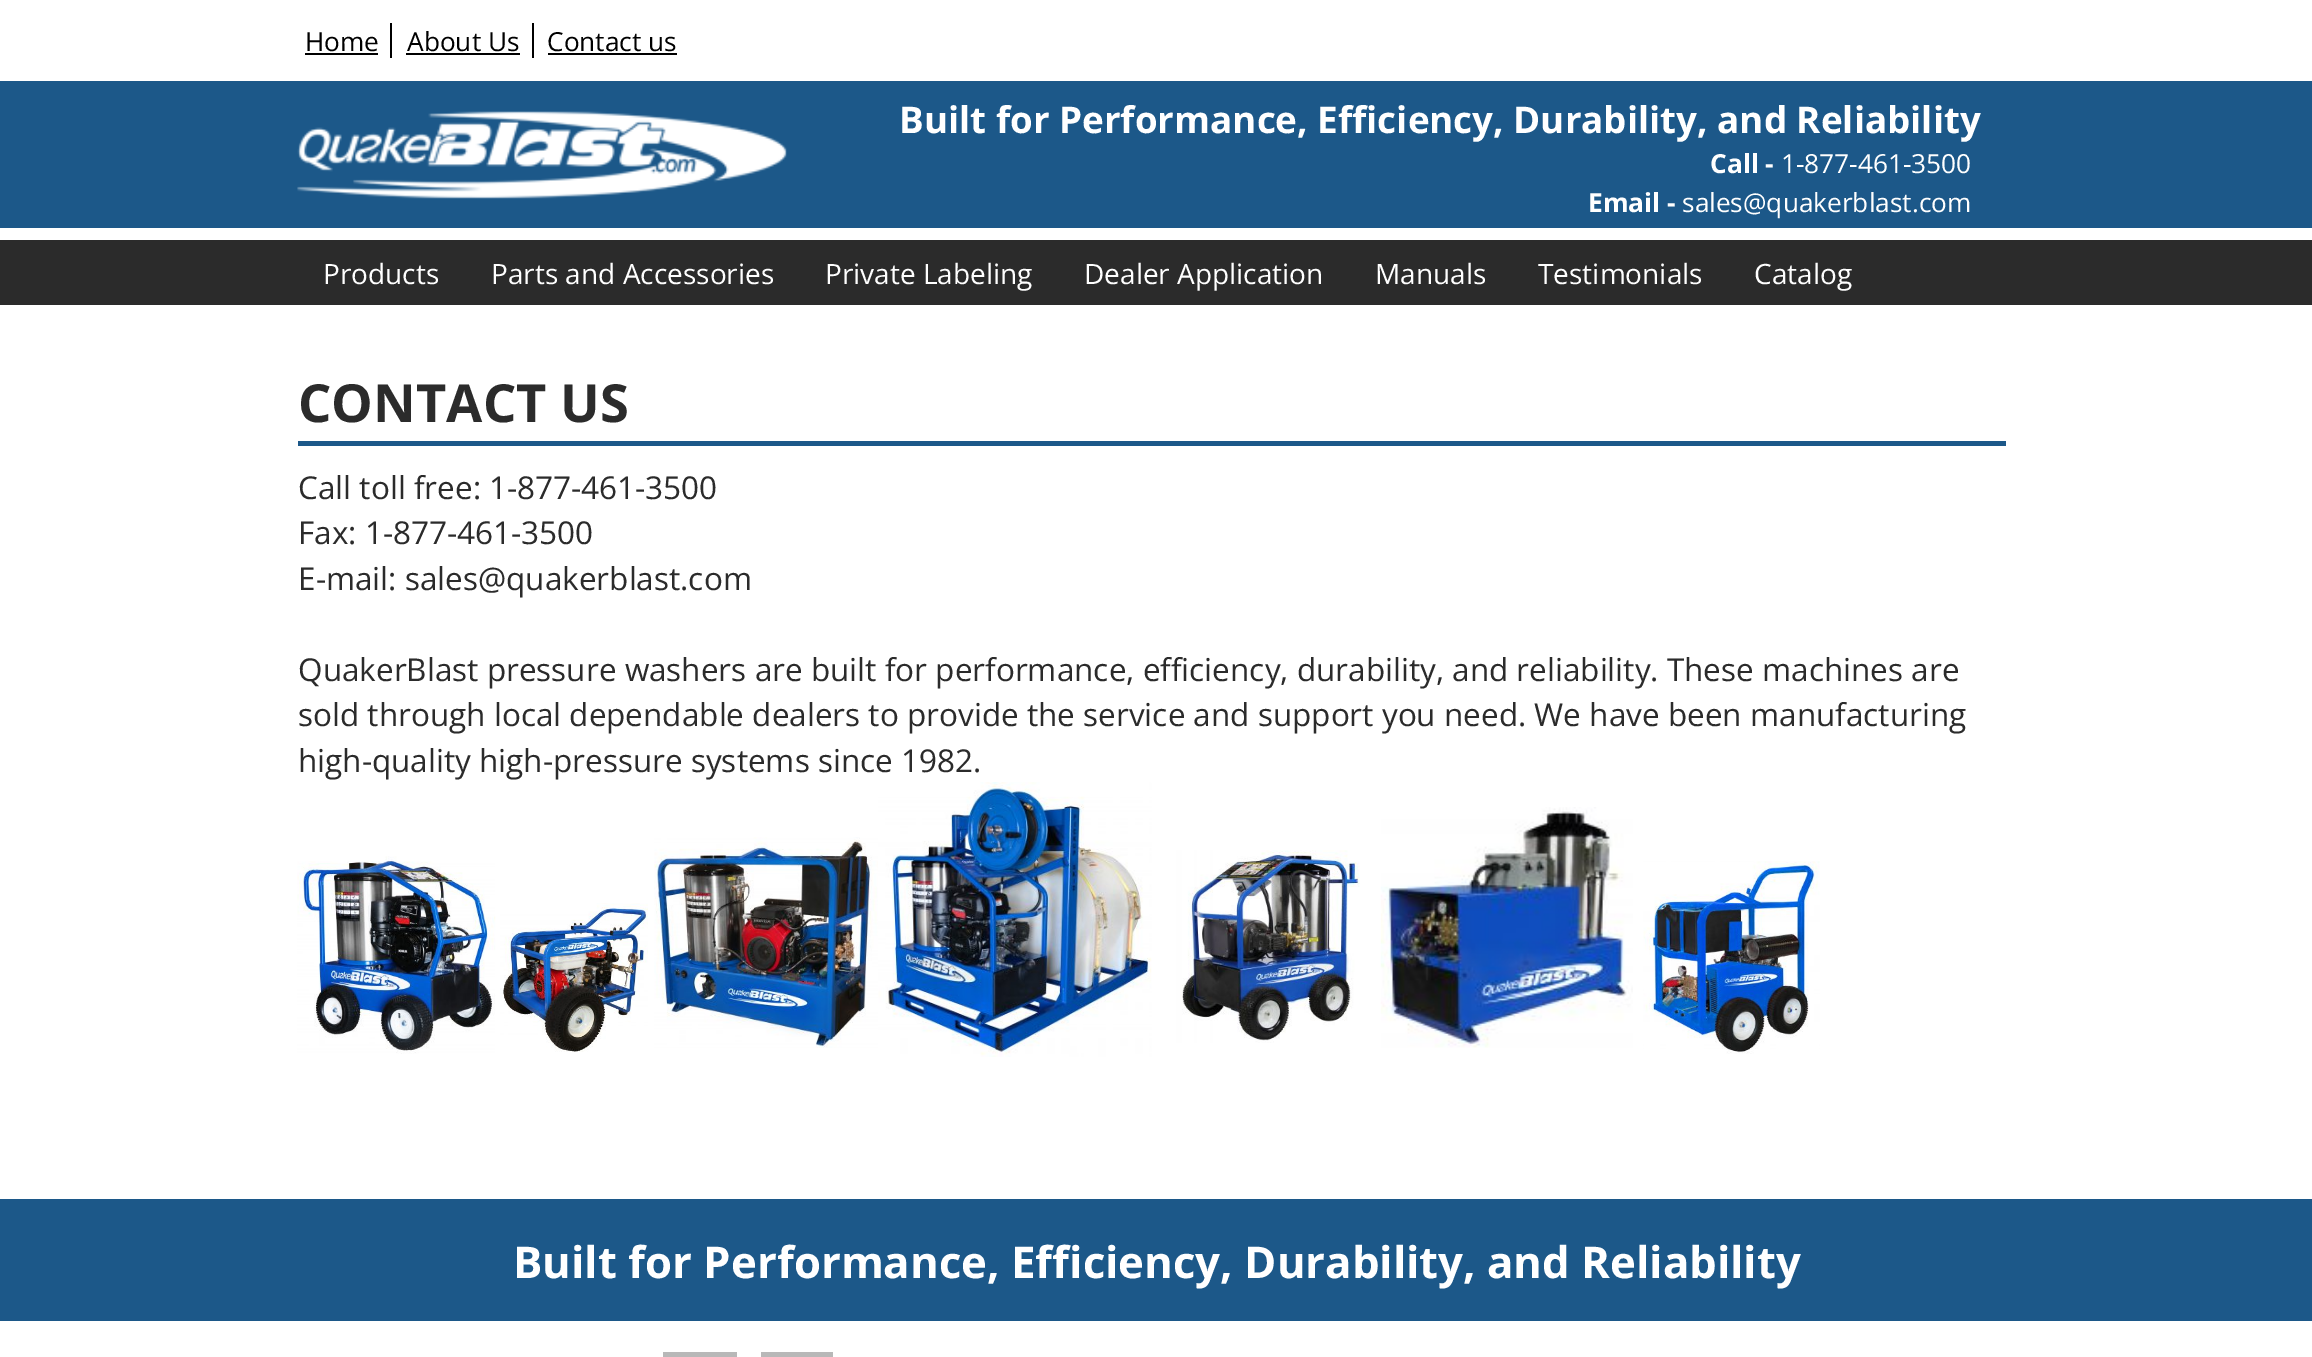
%!PS
<< /PageSize [2312 1357] >> setpagedevice
/co { dup -16 bitshift 255 div exch dup -8 bitshift 255 and 255 div exch 255 and 255 div setrgbcolor } def
/fn { [ exch dup neg 0 0 3 -1 roll 0 0 ] selectfont } def
/tx { co fn moveto show } def
/bx { co rectfill } def
/im { 5 dict begin { /h /w /y /x /name } { exch def } forall
  gsave x y translate w h scale
  w h 8 [w 0 0 h 0 0] name (r) file false 3 colorimage grestore end } def
0 1357 translate 1 -1 scale
4 setmiterlimit
0 0 2312 1357 16#FFFFFF bx
390 23 2 35 16#000000 bx
305 53 73 2 16#000000 bx
532 23 2 35 16#000000 bx
406 53 114 2 16#000000 bx
548 53 129 2 16#000000 bx
0 81 2312 147 16#1C5889 bx
(media/1.raw) 297 111 490 88 im
0 240 2312 65 16#2B2B2B bx
298 441 1708 5 16#1C5889 bx
(media/2.raw) 297 856 199 198 im
(media/3.raw) 500 903 148 149 im
(media/4.raw) 654 837 224 211 im
(media/5.raw) 878 782 274 275 im
(media/6.raw) 1151 850 209 193 im
(media/7.raw) 1380 807 253 241 im
(media/8.raw) 1643 861 177 193 im
0 1199 2312 122 16#1C5889 bx
663 1352 74 5 16#B8B8B8 bx
761 1352 72 5 16#B8B8B8 bx
(Home) 305 51 /OpenSans-Regular 26.25 16#000000 tx
(About Us) 407 51 /OpenSans-Regular 26.25 16#000000 tx
(Contact us) 547 51 /OpenSans-Regular 26.25 16#000000 tx
(Built for Performance, Efficiency, Durability, and Reliability) 899 133 /OpenSans-Bold 36.75 16#FFFFFF tx
(Call -) 1710 173 /OpenSans-Bold 26.25 16#FFFFFF tx
(1-877-461-3500) 1781 173 /OpenSans-Regular 26.25 16#FFFFFF tx
(Email -) 1588 212 /OpenSans-Bold 26.25 16#FFFFFF tx
(sales@quakerblast.com) 1682 212 /OpenSans-Regular 26.25 16#FFFFFF tx
(Products) 323 284 /OpenSans-Regular 28 16#FFFFFF tx
(Parts and Accessories) 491 284 /OpenSans-Regular 28 16#FFFFFF tx
(Private Labeling) 825 284 /OpenSans-Regular 28 16#FFFFFF tx
(Dealer Application) 1084 284 /OpenSans-Regular 28 16#FFFFFF tx
(Manuals) 1375 284 /OpenSans-Regular 28 16#FFFFFF tx
(Testimonials) 1538 284 /OpenSans-Regular 28 16#FFFFFF tx
(Catalog) 1754 284 /OpenSans-Regular 28 16#FFFFFF tx
(CONTACT US) 298 422 /OpenSans-Bold 52.5 16#2B2B2B tx
(Call toll free: 1-877-461-3500) 298 499 /OpenSans-Regular 31.5 16#2B2B2B tx
(Fax: 1-877-461-3500) 298 544 /OpenSans-Regular 31.5 16#2B2B2B tx
(E-mail: sales@quakerblast.com) 298 590 /OpenSans-Regular 31.5 16#2B2B2B tx
(QuakerBlast pressure washers are built for performance, efficiency, durability, and reliability. These machines are) 298 681 /OpenSans-Regular 31.5 16#2B2B2B tx
(sold through local dependable dealers to provide the service and support you need. We have been manufacturing) 298 726 /OpenSans-Regular 31.5 16#2B2B2B tx
(high-quality high-pressure systems since 1982.) 298 772 /OpenSans-Regular 31.5 16#2B2B2B tx
(Built for Performance, Efficiency, Durability, and Reliability) 513 1278 /OpenSans-Bold 43.75 16#FFFFFF tx
showpage
